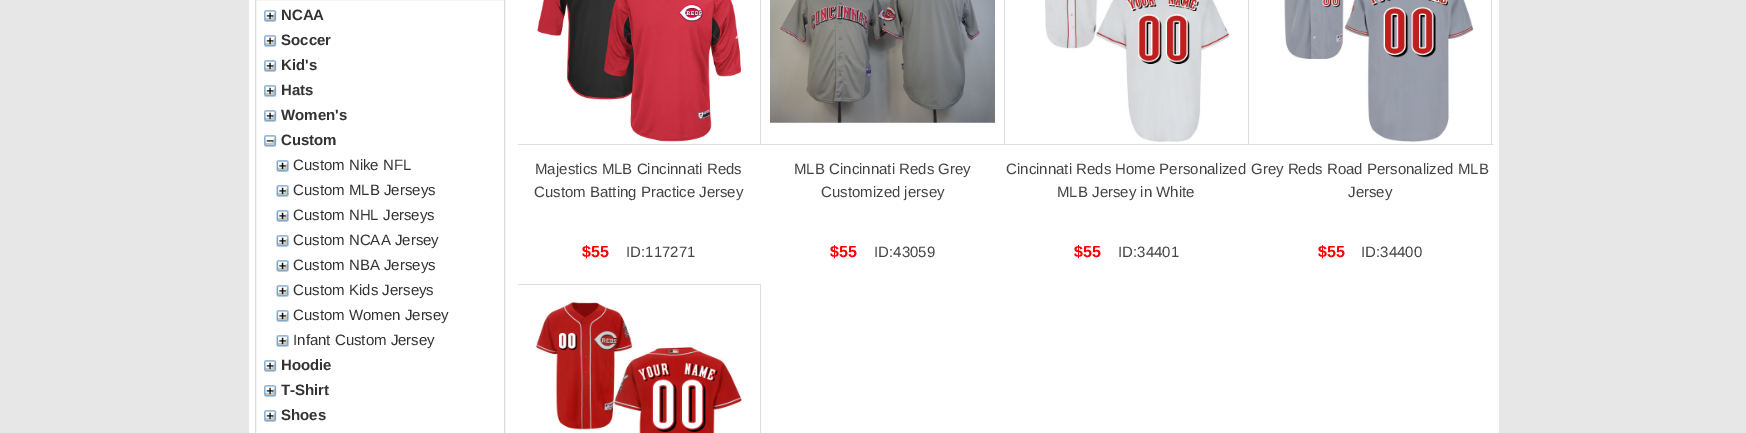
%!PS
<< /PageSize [1746 433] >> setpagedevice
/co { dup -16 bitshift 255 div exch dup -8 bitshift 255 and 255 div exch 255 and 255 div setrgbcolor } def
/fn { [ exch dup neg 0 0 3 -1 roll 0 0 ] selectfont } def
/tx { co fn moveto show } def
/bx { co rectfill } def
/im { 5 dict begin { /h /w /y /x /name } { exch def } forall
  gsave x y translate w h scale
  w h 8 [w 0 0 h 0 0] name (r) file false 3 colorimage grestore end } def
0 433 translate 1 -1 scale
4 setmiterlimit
0 0 1746 433 16#E7E7E7 bx
249 0 1250 433 16#FFFFFF bx
16#DBDBDB co
255.5 -.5 249 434 rectstroke
(media/1.raw) 264 10 13 12 im
(media/1.raw) 264 35 13 12 im
(media/1.raw) 264 60 13 12 im
(media/1.raw) 264 85 13 12 im
(media/1.raw) 264 110 13 12 im
(media/2.raw) 264 135 13 12 im
(media/3.raw) 276 160 13 12 im
(media/4.raw) 276 185 13 12 im
(media/4.raw) 276 210 13 12 im
(media/4.raw) 276 235 13 12 im
(media/4.raw) 276 260 13 12 im
(media/4.raw) 276 285 13 12 im
(media/4.raw) 276 310 13 12 im
(media/4.raw) 276 335 13 12 im
(media/1.raw) 264 360 13 12 im
(media/1.raw) 264 385 13 12 im
(media/1.raw) 264 410 13 12 im
760 0 1 145 16#DDDDDD bx
518 144 243 1 16#DDDDDD bx
(media/5.raw) 535 0 208 143 im
1004 0 1 145 16#DDDDDD bx
761 144 244 1 16#DDDDDD bx
(media/6.raw) 770 0 225 123 im
1248 0 1 145 16#DDDDDD bx
1005 144 244 1 16#DDDDDD bx
(media/7.raw) 1045 0 185 142 im
1491 0 1 145 16#DDDDDD bx
1249 144 244 1 16#DDDDDD bx
(media/8.raw) 1284 0 190 142 im
518 284 243 1 16#DDDDDD bx
760 284 1 149 16#DDDDDD bx
(media/9.raw) 535 302 207 131 im
(NCAA) 281 20 /LiberationSans-Bold 15 16#333333 tx
(Soccer) 281 45 /LiberationSans-Bold 15 16#333333 tx
(Kid's) 281 70 /LiberationSans-Bold 15 16#333333 tx
(Hats) 281 95 /LiberationSans-Bold 15 16#333333 tx
(Women's) 281 120 /LiberationSans-Bold 15 16#333333 tx
(Custom) 281 145 /LiberationSans-Bold 15 16#333333 tx
(Custom Nike NFL) 293 170 /LiberationSans-Regular 15 16#333333 tx
(Custom MLB Jerseys) 293 195 /LiberationSans-Regular 15 16#333333 tx
(Custom NHL Jerseys) 293 220 /LiberationSans-Regular 15 16#333333 tx
(Custom NCAA Jersey) 293 245 /LiberationSans-Regular 15 16#333333 tx
(Custom NBA Jerseys) 293 270 /LiberationSans-Regular 15 16#333333 tx
(Custom Kids Jerseys) 293 295 /LiberationSans-Regular 15 16#333333 tx
(Custom Women Jersey) 293 320 /LiberationSans-Regular 15 16#333333 tx
(Infant Custom Jersey) 293 345 /LiberationSans-Regular 15 16#333333 tx
(Hoodie) 281 370 /LiberationSans-Bold 15 16#333333 tx
(T-Shirt) 281 395 /LiberationSans-Bold 15 16#333333 tx
(Shoes) 281 420 /LiberationSans-Bold 15 16#333333 tx
(Majestics MLB Cincinnati Reds) 535 174 /LiberationSans-Regular 15 16#444444 tx
(Custom Batting Practice Jersey) 534 197 /LiberationSans-Regular 15 16#444444 tx
($55) 582 257 /LiberationSans-Bold 16 16#FF0000 tx
(ID:117271) 626 257 /LiberationSans-Regular 15 16#444444 tx
(MLB Cincinnati Reds Grey) 794 174 /LiberationSans-Regular 15 16#444444 tx
(Customized jersey) 821 197 /LiberationSans-Regular 15 16#444444 tx
($55) 830 257 /LiberationSans-Bold 16 16#FF0000 tx
(ID:43059) 874 257 /LiberationSans-Regular 15 16#444444 tx
(Cincinnati Reds Home Personalized) 1006 174 /LiberationSans-Regular 15 16#444444 tx
(MLB Jersey in White) 1057 197 /LiberationSans-Regular 15 16#444444 tx
($55) 1074 257 /LiberationSans-Bold 16 16#FF0000 tx
(ID:34401) 1118 257 /LiberationSans-Regular 15 16#444444 tx
(Grey Reds Road Personalized MLB) 1251 174 /LiberationSans-Regular 15 16#444444 tx
(Jersey) 1348 197 /LiberationSans-Regular 15 16#444444 tx
($55) 1318 257 /LiberationSans-Bold 16 16#FF0000 tx
(ID:34400) 1361 257 /LiberationSans-Regular 15 16#444444 tx
showpage
